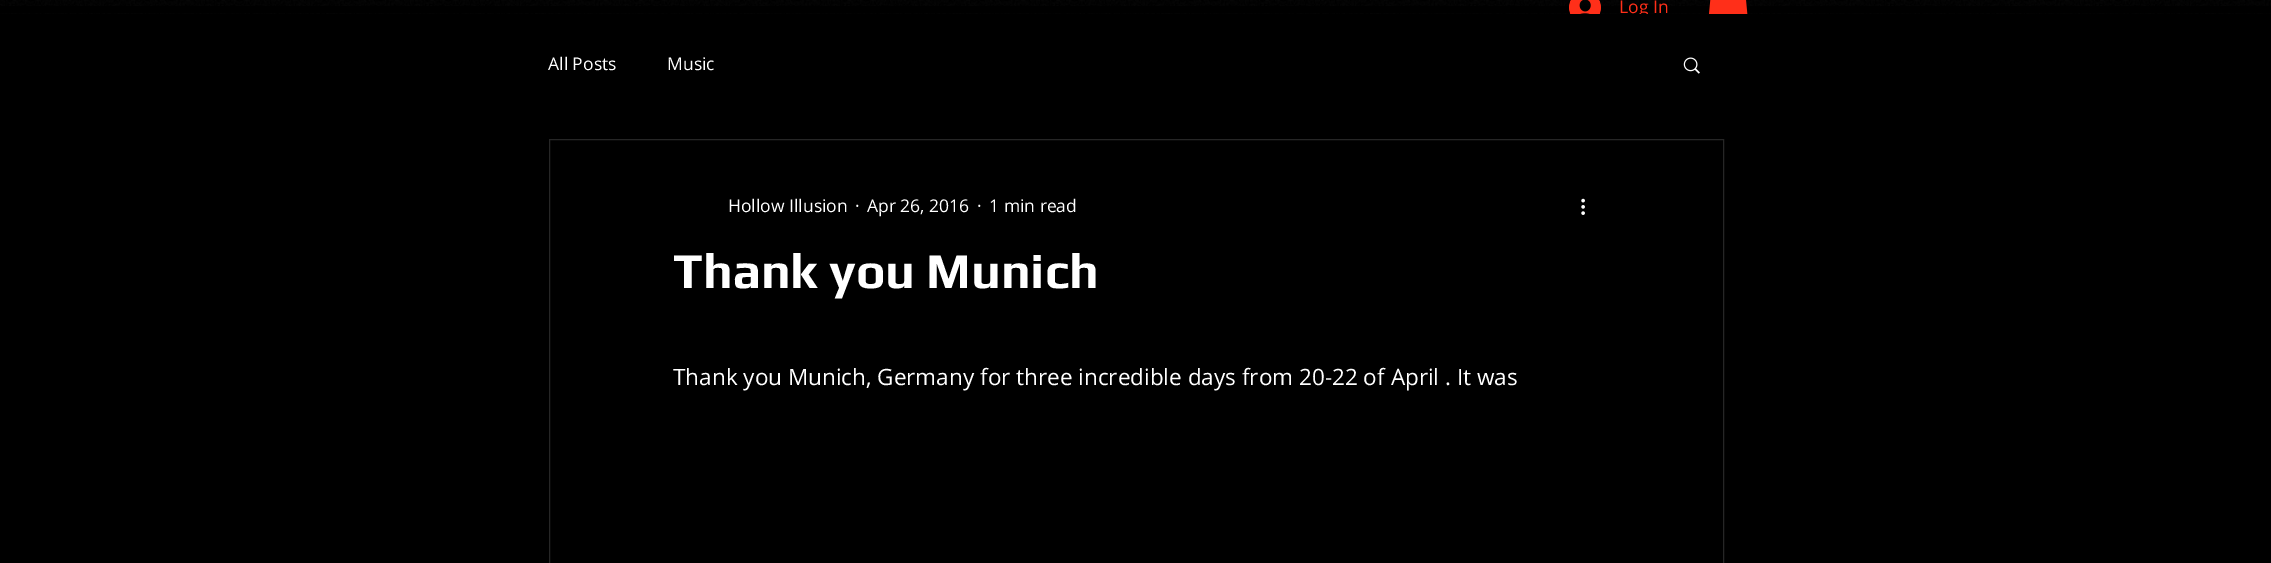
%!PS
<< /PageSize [2271 563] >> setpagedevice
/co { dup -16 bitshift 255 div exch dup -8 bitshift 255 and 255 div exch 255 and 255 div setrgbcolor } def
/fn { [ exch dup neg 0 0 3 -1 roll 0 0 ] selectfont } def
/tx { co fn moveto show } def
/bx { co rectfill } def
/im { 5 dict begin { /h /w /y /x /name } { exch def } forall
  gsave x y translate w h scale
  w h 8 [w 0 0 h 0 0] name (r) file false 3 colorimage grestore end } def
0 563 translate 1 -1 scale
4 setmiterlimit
0 0 2271 563 16#000000 bx
(media/1.raw) 0 0 2271 14 im
0 6 2271 7 16#000000 bx
(media/2.raw) 1569 0 32 14 im
(media/3.raw) 1709 0 39 14 im
(media/4.raw) 1683 57 17 17 im
16#262626 co
549.5 139.5 1174 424 rectstroke
(media/5.raw) 1581 198 4 17 im
(Log In) 1619 13 /OpenSans-Regular 17.5 16#FF2F19 tx
1638 14 10 4 16#000000 bx
(All Posts) 548 70 /OpenSans-Regular 17.5 16#FFFFFF tx
(Music) 667 70 /OpenSans-Regular 17.5 16#FFFFFF tx
(Hollow Illusion) 728 212 /OpenSans-Regular 17.5 16#FFFFFF tx
(·) 855 212 /OpenSans-Regular 17.5 16#FFFFFF tx
(Apr 26, 2016) 867 212 /OpenSans-Regular 17.5 16#FFFFFF tx
(·) 977 212 /OpenSans-Regular 17.5 16#FFFFFF tx
(1 min read) 989 212 /OpenSans-Regular 17.5 16#FFFFFF tx
(Thank you Munich) 673 288 /Play-Bold 50 16#FFFFFF tx
(Thank you Munich, Germany for three incredible days from 20-22 of April . It was) 673 385 /OpenSans-Regular 22.5 16#FFFFFF tx
showpage
